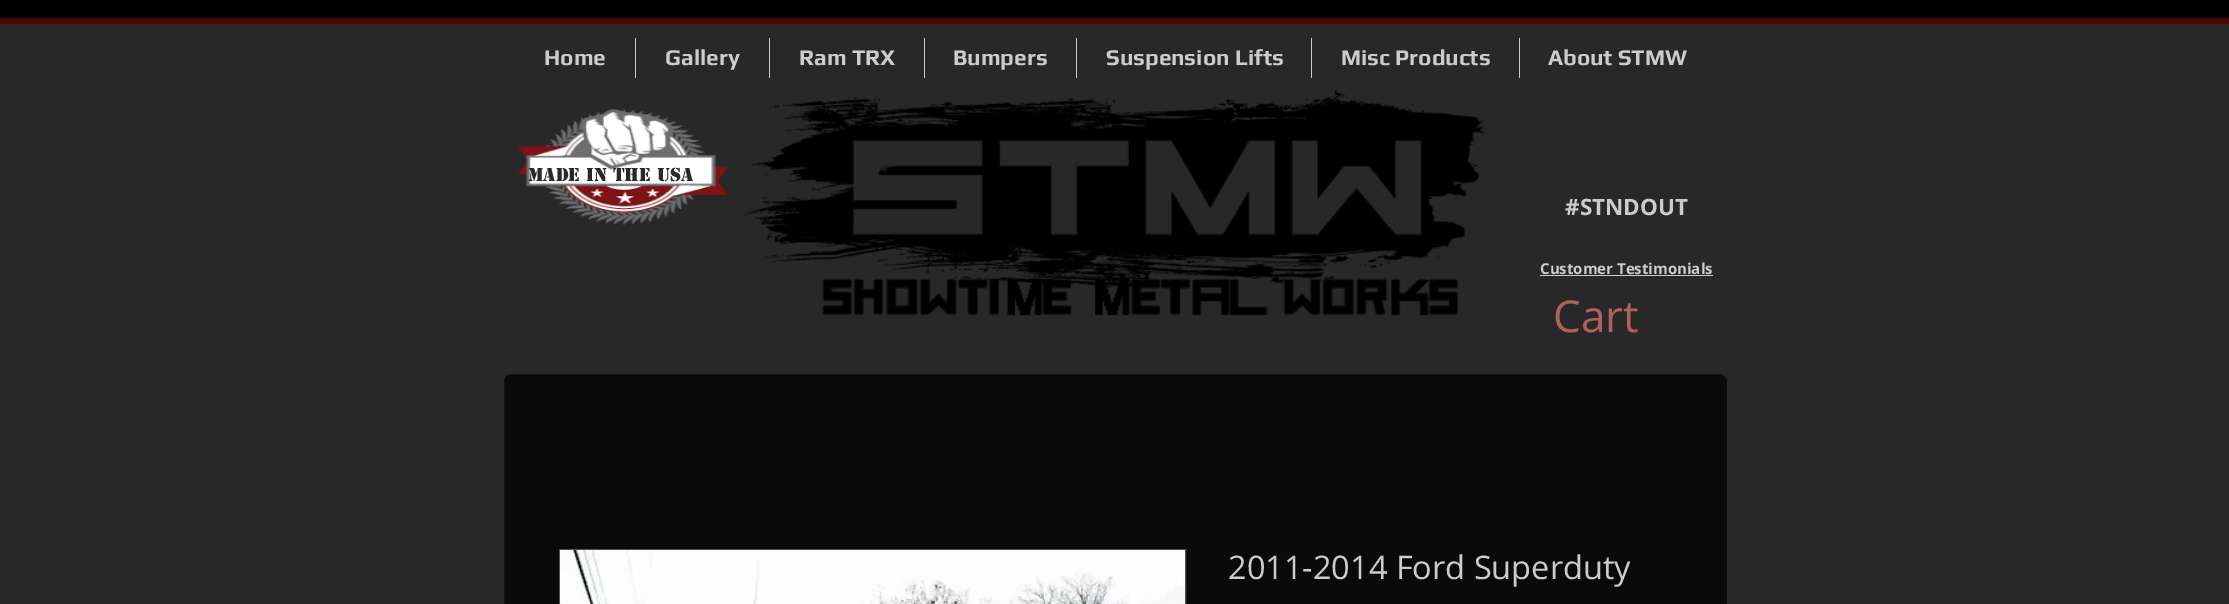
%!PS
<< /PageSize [2229 604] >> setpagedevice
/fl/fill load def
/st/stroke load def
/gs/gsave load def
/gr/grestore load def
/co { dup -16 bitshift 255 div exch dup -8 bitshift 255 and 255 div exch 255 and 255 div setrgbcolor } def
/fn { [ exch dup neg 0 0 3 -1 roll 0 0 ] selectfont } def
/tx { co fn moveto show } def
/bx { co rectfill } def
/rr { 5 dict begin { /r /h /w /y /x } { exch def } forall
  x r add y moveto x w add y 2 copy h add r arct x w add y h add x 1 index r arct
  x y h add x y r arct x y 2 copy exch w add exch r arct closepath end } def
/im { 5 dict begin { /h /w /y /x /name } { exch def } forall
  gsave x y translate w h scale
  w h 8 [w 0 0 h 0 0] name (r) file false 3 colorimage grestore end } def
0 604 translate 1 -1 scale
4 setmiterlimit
0 0 2229 604 16#282828 bx
0 0 2229 18 16#000000 bx
0 18 2229 6 16#4D0404 bx
635 38 1 40 16#CCCCCC bx
769 38 1 40 16#CCCCCC bx
924 38 1 40 16#CCCCCC bx
1076 38 1 40 16#CCCCCC bx
1311 38 1 40 16#CCCCCC bx
1519 38 1 40 16#CCCCCC bx
(media/1.raw) 517 109 212 116 im
(media/2.raw) 744 90 741 226 im
1540 275 173 1 16#CCCCCC bx
16#0A0A0A co
503.5 373.5 1224 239 7.5 rr gs fl gr
16#282828 co
st
16#515151 co
559.5 549.5 626 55 rectstroke
(media/3.raw) 560 550 625 54 im
(Home) 544 65 /Play-Bold 22.5 16#CCCCCC tx
(Gallery) 665 65 /Play-Bold 22.5 16#CCCCCC tx
(Ram TRX) 799 65 /Play-Bold 22.5 16#CCCCCC tx
(Bumpers) 953 65 /Play-Bold 22.5 16#CCCCCC tx
(Suspension Lifts) 1106 65 /Play-Bold 22.5 16#CCCCCC tx
(Misc Products) 1341 65 /Play-Bold 22.5 16#CCCCCC tx
(About STMW) 1548 65 /Play-Bold 22.5 16#CCCCCC tx
(Made In The USA) 528 181 /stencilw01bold-Bold 17.5 16#282828 tx
(#STNDOUT) 1565 215 /OpenSans-Bold 22.5 16#CCCCCC tx
(Customer Testimonials) 1540 274 /OpenSans-Bold 15 16#CCCCCC tx
(Cart) 1553 332 /OpenSans-Regular 44 16#B45F5F tx
(2011-2014 Ford Superduty) 1228 579 /OpenSans-Regular 32.5 16#CCCCCC tx
showpage
